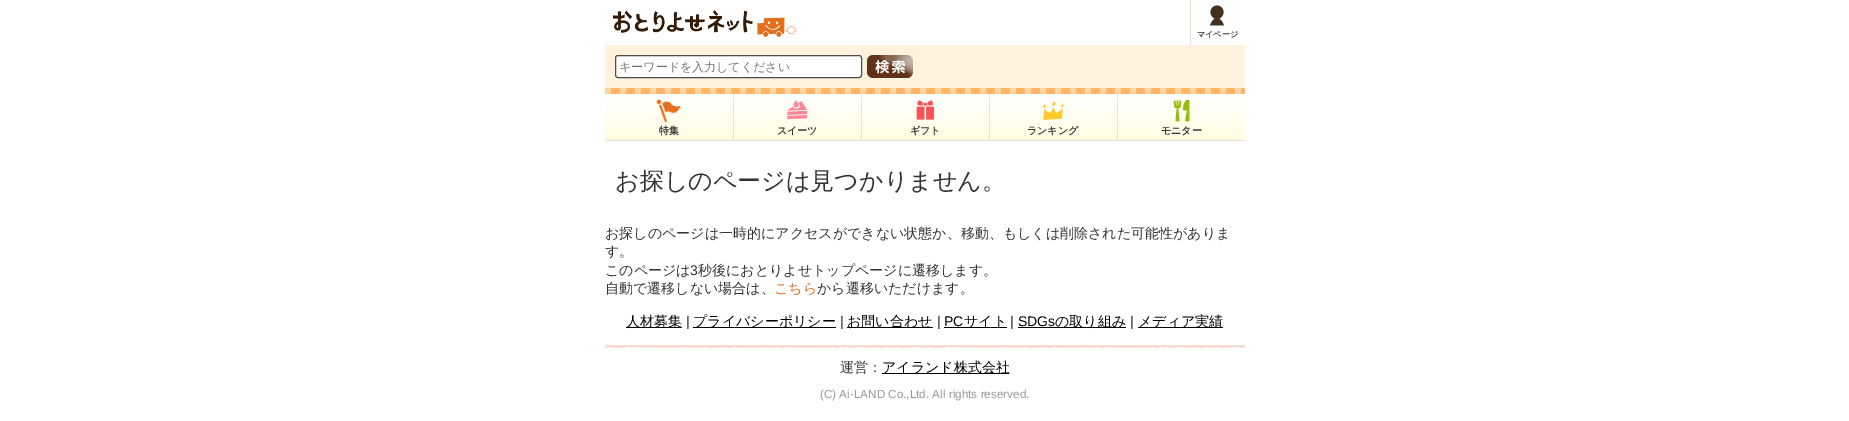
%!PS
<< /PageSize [1849 421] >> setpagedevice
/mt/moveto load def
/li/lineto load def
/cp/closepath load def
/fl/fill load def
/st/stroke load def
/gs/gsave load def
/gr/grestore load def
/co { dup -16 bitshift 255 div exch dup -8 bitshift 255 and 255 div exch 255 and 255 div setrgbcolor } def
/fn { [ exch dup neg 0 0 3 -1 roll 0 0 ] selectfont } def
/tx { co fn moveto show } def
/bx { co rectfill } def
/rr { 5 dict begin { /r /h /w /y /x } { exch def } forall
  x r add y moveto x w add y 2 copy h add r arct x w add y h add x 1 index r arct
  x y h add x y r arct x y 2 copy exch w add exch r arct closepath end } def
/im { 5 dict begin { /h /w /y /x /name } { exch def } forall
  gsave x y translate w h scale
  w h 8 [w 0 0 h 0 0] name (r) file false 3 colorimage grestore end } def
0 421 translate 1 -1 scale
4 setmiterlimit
0 0 1849 421 16#FFFFFF bx
(media/1.raw) 613 10 183 27 im
(media/2.raw) 1210 5 14 21 im
1190 0 1 45 16#E5E4D0 bx
605 45 640 43 16#FFF1DB bx
(media/3.raw) 605 88 640 6 im
16#FFFFFF co
615.5 55.5 246 22 2.5 rr gs fl gr
16#4C4C4C co
st
(media/4.raw) 867 55 46 23 im
gs 605 98 mt 1245 98 li 1245 140 li 605 140 li cp clip newpath
<< /ShadingType 2 /ColorSpace /DeviceRGB /Coords [925 94 925 140] /Extend [true true] /Function << /FunctionType 2 /Domain [0 1] /C0 [1 1 1] /C1 [1 .992 .878] /N 1 >> >> shfill gr
605 140 640 1 16#E5E4D0 bx
(media/5.raw) 656 99 25 24 im
(media/6.raw) 787 100 21 20 im
733 94 1 46 16#E5E4D0 bx
(media/7.raw) 916 100 18 20 im
861 94 1 46 16#E5E4D0 bx
(media/8.raw) 1042 100 23 21 im
989 94 1 46 16#E5E4D0 bx
(media/9.raw) 1173 100 17 22 im
1117 94 1 46 16#E5E4D0 bx
(media/10.raw) 605 345 640 3 im
626 327 56 1 16#000000 bx
693 327 143 1 16#000000 bx
847 327 86 1 16#000000 bx
944 327 63 1 16#000000 bx
1018 327 108 1 16#000000 bx
1138 327 85 1 16#000000 bx
882 373 127 1 16#000000 bx
(マイページ) 1197 37 /WenQuanYiZenHei-Bold 8 16#333333 tx
(キーワードを入力してください) 619 71 /WenQuanYiZenHei-Medium 12 16#757575 tx
(特集) 659 134 /WenQuanYiZenHei-Bold 10 16#333333 tx
(スイーツ) 777 134 /WenQuanYiZenHei-Bold 10 16#333333 tx
(ギフト) 910 134 /WenQuanYiZenHei-Bold 10 16#333333 tx
(ランキング) 1027 134 /WenQuanYiZenHei-Bold 10 16#333333 tx
(モニター) 1161 134 /WenQuanYiZenHei-Bold 10 16#333333 tx
(お探しのページは見つかりません。) 615 189 /WenQuanYiZenHei-Medium 24 16#333333 tx
(お探しのページは一時的にアクセスができない状態か、移動、もしくは削除された可能性がありま) 605 238 /WenQuanYiZenHei-Medium 14 16#333333 tx
(す。) 605 256 /WenQuanYiZenHei-Medium 14 16#333333 tx
(このページは) 605 275 /WenQuanYiZenHei-Medium 14 16#333333 tx
(3) 690 275 /LiberationSans-Regular 14 16#333333 tx
(秒後におとりよせトップページに遷移します。) 698 275 /WenQuanYiZenHei-Medium 14 16#333333 tx
(自動で遷移しない場合は、) 605 293 /WenQuanYiZenHei-Medium 14 16#333333 tx
(こちら) 774 293 /WenQuanYiZenHei-Medium 14 16#E36F1D tx
(から遷移いただけます。) 817 293 /WenQuanYiZenHei-Medium 14 16#333333 tx
(人材募集) 626 326 /WenQuanYiZenHei-Medium 14 16#000000 tx
(|) 686 326 /LiberationSans-Regular 14 16#333333 tx
(プライバシーポリシー) 693 326 /WenQuanYiZenHei-Medium 14 16#000000 tx
(|) 840 326 /LiberationSans-Regular 14 16#333333 tx
(お問い合わせ) 847 326 /WenQuanYiZenHei-Medium 14 16#000000 tx
(|) 937 326 /LiberationSans-Regular 14 16#333333 tx
(PC) 944 326 /LiberationSans-Regular 14 16#000000 tx
(サイト) 964 326 /WenQuanYiZenHei-Medium 14 16#000000 tx
(|) 1010 326 /LiberationSans-Regular 14 16#333333 tx
(SDGs) 1018 326 /LiberationSans-Regular 14 16#000000 tx
(の取り組み) 1055 326 /WenQuanYiZenHei-Medium 14 16#000000 tx
(|) 1130 326 /LiberationSans-Regular 14 16#333333 tx
(メディア実績) 1138 326 /WenQuanYiZenHei-Medium 14 16#000000 tx
(運営：) 840 372 /WenQuanYiZenHei-Medium 14 16#333333 tx
(アイランド株式会社) 882 372 /WenQuanYiZenHei-Medium 14 16#000000 tx
(\(C\) Ai-LAND Co.,Ltd. All rights reserved.) 820 398 /LiberationSans-Regular 11.7 16#999999 tx
showpage
